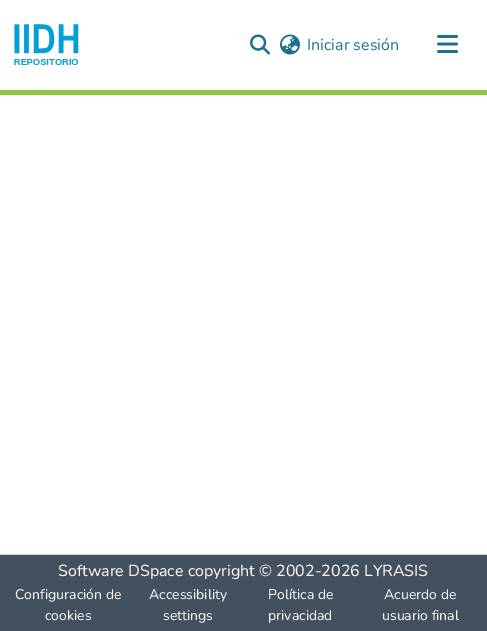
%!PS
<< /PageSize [487 631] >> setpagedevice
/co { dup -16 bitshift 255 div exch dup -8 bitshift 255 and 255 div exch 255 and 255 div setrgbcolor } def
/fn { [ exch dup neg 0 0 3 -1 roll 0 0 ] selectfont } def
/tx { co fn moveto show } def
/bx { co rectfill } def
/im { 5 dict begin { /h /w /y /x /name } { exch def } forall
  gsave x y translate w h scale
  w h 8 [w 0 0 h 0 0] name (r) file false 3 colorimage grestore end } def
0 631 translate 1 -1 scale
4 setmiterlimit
0 0 487 631 16#FFFFFF bx
0 90 487 5 16#92C642 bx
(media/1.raw) 14 24 65 41 im
(media/2.raw) 250 34 20 21 im
(media/3.raw) 280 34 20 21 im
(media/4.raw) 437 35 21 18 im
0 555 487 76 16#43515F bx
0 554 487 1 16#CED4DA bx
132 583 1 44 16#495057 bx
244 583 1 44 16#495057 bx
356 583 1 44 16#495057 bx
(Iniciar sesión) 307 50 /Nunito-Regular 16 16#1E6F90 tx
(Software DSpace copyright © 2002-2026 LYRASIS) 58 576 /Nunito-Regular 16 16#FFFFFF tx
(Configuración de) 15 599 /Nunito-Regular 14 16#FFFFFF tx
(cookies) 45 620 /Nunito-Regular 14 16#FFFFFF tx
(Accessibility) 149 599 /Nunito-Regular 14 16#FFFFFF tx
(settings) 163 620 /Nunito-Regular 14 16#FFFFFF tx
(Política de) 268 599 /Nunito-Regular 14 16#FFFFFF tx
(privacidad) 268 620 /Nunito-Regular 14 16#FFFFFF tx
(Acuerdo de) 384 599 /Nunito-Regular 14 16#FFFFFF tx
(usuario final) 382 620 /Nunito-Regular 14 16#FFFFFF tx
showpage
